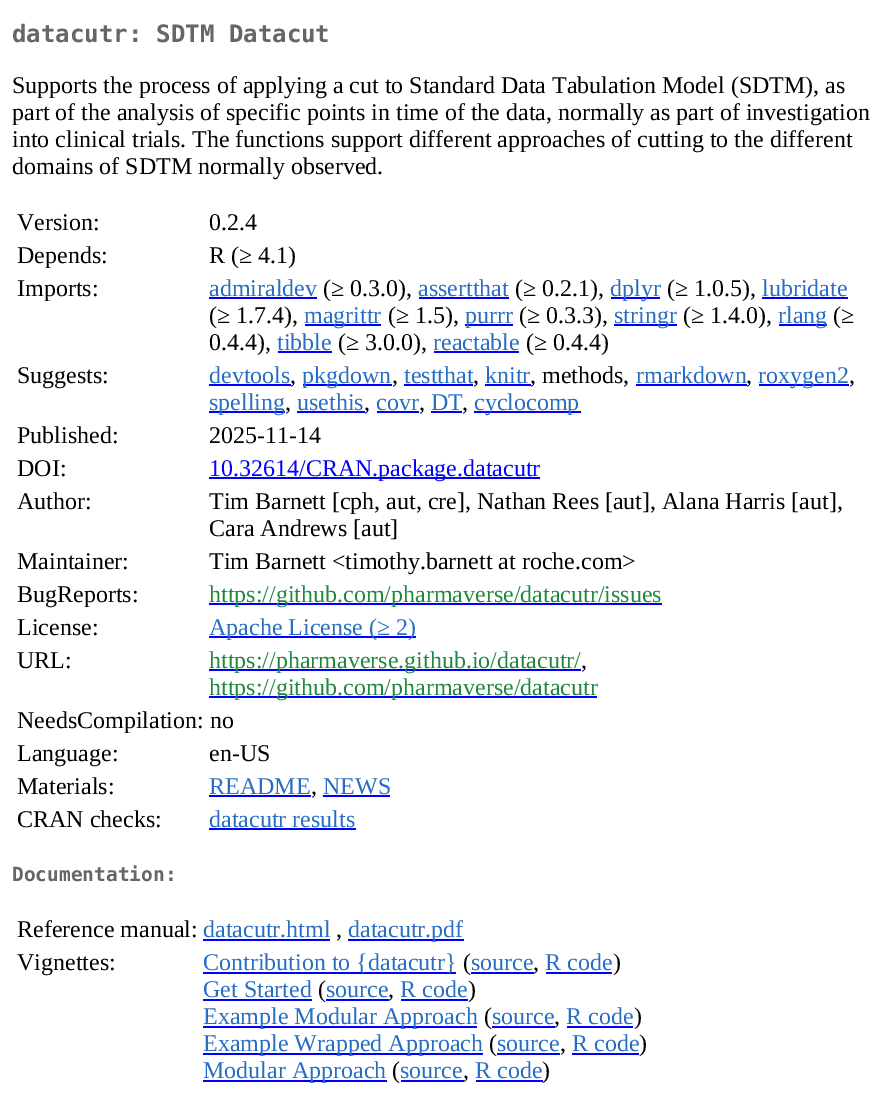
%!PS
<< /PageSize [888 1094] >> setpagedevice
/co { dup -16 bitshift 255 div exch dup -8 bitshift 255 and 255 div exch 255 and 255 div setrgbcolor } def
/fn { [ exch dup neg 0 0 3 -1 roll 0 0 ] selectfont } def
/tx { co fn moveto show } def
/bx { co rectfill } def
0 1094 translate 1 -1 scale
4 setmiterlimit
0 0 888 1094 16#FFFFFF bx
209 297 108 2 16#0000FF bx
419 297 90 2 16#0000FF bx
611 297 49 2 16#0000FF bx
762 297 86 2 16#0000FF bx
305 324 76 2 16#0000FF bx
465 324 48 2 16#0000FF bx
614 324 63 2 16#0000FF bx
779 324 48 2 16#0000FF bx
278 351 54 2 16#0000FF bx
434 351 85 2 16#0000FF bx
209 384 82 2 16#0000FF bx
303 384 89 2 16#0000FF bx
404 384 69 2 16#0000FF bx
485 384 46 2 16#0000FF bx
636 384 111 2 16#0000FF bx
759 384 90 2 16#0000FF bx
209 411 76 2 16#0000FF bx
297 411 68 2 16#0000FF bx
377 411 42 2 16#0000FF bx
431 411 31 2 16#0000FF bx
474 411 107 2 16#0000FF bx
209 477 331 2 16#0000FF bx
209 603 453 2 16#0000FF bx
209 636 207 2 16#0000FF bx
209 669 372 2 16#0000FF bx
209 696 388 2 16#0000FF bx
209 795 102 2 16#0000FF bx
323 795 67 2 16#0000FF bx
209 828 147 2 16#0000FF bx
203 939 127 2 16#0000FF bx
348 939 116 2 16#0000FF bx
203 972 253 2 16#0000FF bx
471 972 63 2 16#0000FF bx
546 972 66 2 16#0000FF bx
203 999 109 2 16#0000FF bx
326 999 63 2 16#0000FF bx
401 999 67 2 16#0000FF bx
203 1026 274 2 16#0000FF bx
492 1026 63 2 16#0000FF bx
567 1026 66 2 16#0000FF bx
203 1053 280 2 16#0000FF bx
497 1053 63 2 16#0000FF bx
572 1053 67 2 16#0000FF bx
203 1080 184 2 16#0000FF bx
401 1080 63 2 16#0000FF bx
476 1080 67 2 16#0000FF bx
(datacutr: SDTM Datacut) 12 42 /DejaVuSansMono-Bold 24 16#666666 tx
(Supports the process of applying a cut to Standard Data Tabulation Model \(SDTM\), as) 12 93 /LiberationSerif-Regular 24 16#000000 tx
(part of the analysis of specific points in time of the data, normally as part of investigation) 12 120 /LiberationSerif-Regular 24 16#000000 tx
(into clinical trials. The functions support different approaches of cutting to the different) 12 147 /LiberationSerif-Regular 24 16#000000 tx
(domains of SDTM normally observed.) 12 174 /LiberationSerif-Regular 24 16#000000 tx
(Version:) 17 230 /LiberationSerif-Regular 24 16#000000 tx
(0.2.4) 209 230 /LiberationSerif-Regular 24 16#000000 tx
(Depends:) 17 263 /LiberationSerif-Regular 24 16#000000 tx
(R \(≥ 4.1\)) 209 263 /LiberationSerif-Regular 24 16#000000 tx
(Imports:) 17 296 /LiberationSerif-Regular 24 16#000000 tx
(admiraldev) 209 296 /LiberationSerif-Regular 24 16#276DC3 tx
(\(≥ 0.3.0\),) 323 296 /LiberationSerif-Regular 24 16#000000 tx
(assertthat) 418 296 /LiberationSerif-Regular 24 16#276DC3 tx
(\(≥ 0.2.1\),) 515 296 /LiberationSerif-Regular 24 16#000000 tx
(dplyr) 610 296 /LiberationSerif-Regular 24 16#276DC3 tx
(\(≥ 1.0.5\),) 667 296 /LiberationSerif-Regular 24 16#000000 tx
(lubridate) 762 296 /LiberationSerif-Regular 24 16#276DC3 tx
(\(≥ 1.7.4\),) 209 323 /LiberationSerif-Regular 24 16#000000 tx
(magrittr) 304 323 /LiberationSerif-Regular 24 16#276DC3 tx
(\(≥ 1.5\),) 388 323 /LiberationSerif-Regular 24 16#000000 tx
(purrr) 465 323 /LiberationSerif-Regular 24 16#276DC3 tx
(\(≥ 0.3.3\),) 519 323 /LiberationSerif-Regular 24 16#000000 tx
(stringr) 614 323 /LiberationSerif-Regular 24 16#276DC3 tx
(\(≥ 1.4.0\),) 683 323 /LiberationSerif-Regular 24 16#000000 tx
(rlang) 778 323 /LiberationSerif-Regular 24 16#276DC3 tx
(\(≥) 833 323 /LiberationSerif-Regular 24 16#000000 tx
(0.4.4\),) 209 350 /LiberationSerif-Regular 24 16#000000 tx
(tibble) 277 350 /LiberationSerif-Regular 24 16#276DC3 tx
(\(≥ 3.0.0\),) 338 350 /LiberationSerif-Regular 24 16#000000 tx
(reactable) 433 350 /LiberationSerif-Regular 24 16#276DC3 tx
(\(≥ 0.4.4\)) 526 350 /LiberationSerif-Regular 24 16#000000 tx
(Suggests:) 17 383 /LiberationSerif-Regular 24 16#000000 tx
(devtools) 209 383 /LiberationSerif-Regular 24 16#276DC3 tx
(,) 290 383 /LiberationSerif-Regular 24 16#000000 tx
(pkgdown) 302 383 /LiberationSerif-Regular 24 16#276DC3 tx
(,) 392 383 /LiberationSerif-Regular 24 16#000000 tx
(testthat) 404 383 /LiberationSerif-Regular 24 16#276DC3 tx
(,) 473 383 /LiberationSerif-Regular 24 16#000000 tx
(knitr) 485 383 /LiberationSerif-Regular 24 16#276DC3 tx
(, methods,) 530 383 /LiberationSerif-Regular 24 16#000000 tx
(rmarkdown) 636 383 /LiberationSerif-Regular 24 16#276DC3 tx
(,) 746 383 /LiberationSerif-Regular 24 16#000000 tx
(roxygen2) 758 383 /LiberationSerif-Regular 24 16#276DC3 tx
(,) 849 383 /LiberationSerif-Regular 24 16#000000 tx
(spelling) 209 410 /LiberationSerif-Regular 24 16#276DC3 tx
(,) 285 410 /LiberationSerif-Regular 24 16#000000 tx
(usethis) 297 410 /LiberationSerif-Regular 24 16#276DC3 tx
(,) 364 410 /LiberationSerif-Regular 24 16#000000 tx
(covr) 376 410 /LiberationSerif-Regular 24 16#276DC3 tx
(,) 419 410 /LiberationSerif-Regular 24 16#000000 tx
(DT) 431 410 /LiberationSerif-Regular 24 16#276DC3 tx
(,) 462 410 /LiberationSerif-Regular 24 16#000000 tx
(cyclocomp) 474 410 /LiberationSerif-Regular 24 16#276DC3 tx
(Published:) 17 443 /LiberationSerif-Regular 24 16#000000 tx
(2025-11-14) 209 443 /LiberationSerif-Regular 24 16#000000 tx
(DOI:) 17 476 /LiberationSerif-Regular 24 16#000000 tx
(10.32614/CRAN.package.datacutr) 209 476 /LiberationSerif-Regular 24 16#0000FF tx
(Author:) 17 509 /LiberationSerif-Regular 24 16#000000 tx
(Tim Barnett [cph, aut, cre], Nathan Rees [aut], Alana Harris [aut],) 209 509 /LiberationSerif-Regular 24 16#000000 tx
(Cara Andrews [aut]) 209 536 /LiberationSerif-Regular 24 16#000000 tx
(Maintainer:) 17 569 /LiberationSerif-Regular 24 16#000000 tx
(Tim Barnett <timothy.barnett at roche.com>) 209 569 /LiberationSerif-Regular 24 16#000000 tx
(BugReports:) 17 602 /LiberationSerif-Regular 24 16#000000 tx
(https://github.com/pharmaverse/datacutr/issues) 209 602 /LiberationSerif-Regular 24 16#1F883D tx
(License:) 17 635 /LiberationSerif-Regular 24 16#000000 tx
(Apache License \(≥ 2\)) 209 635 /LiberationSerif-Regular 24 16#276DC3 tx
(URL:) 17 668 /LiberationSerif-Regular 24 16#000000 tx
(https://pharmaverse.github.io/datacutr/) 209 668 /LiberationSerif-Regular 24 16#1F883D tx
(,) 581 668 /LiberationSerif-Regular 24 16#000000 tx
(https://github.com/pharmaverse/datacutr) 209 695 /LiberationSerif-Regular 24 16#1F883D tx
(NeedsCompilation: no) 17 728 /LiberationSerif-Regular 24 16#000000 tx
(Language:) 17 761 /LiberationSerif-Regular 24 16#000000 tx
(en-US) 209 761 /LiberationSerif-Regular 24 16#000000 tx
(Materials:) 17 794 /LiberationSerif-Regular 24 16#000000 tx
(README) 209 794 /LiberationSerif-Regular 24 16#276DC3 tx
(,) 311 794 /LiberationSerif-Regular 24 16#000000 tx
(NEWS) 323 794 /LiberationSerif-Regular 24 16#276DC3 tx
(CRAN checks:) 17 827 /LiberationSerif-Regular 24 16#000000 tx
(datacutr results) 209 827 /LiberationSerif-Regular 24 16#276DC3 tx
(Documentation:) 12 881 /DejaVuSansMono-Bold 19.5 16#666666 tx
(Reference manual:) 17 937 /LiberationSerif-Regular 24 16#000000 tx
(datacutr.html) 203 937 /LiberationSerif-Regular 24 16#276DC3 tx
(,) 336 937 /LiberationSerif-Regular 24 16#000000 tx
(datacutr.pdf) 348 937 /LiberationSerif-Regular 24 16#276DC3 tx
(Vignettes:) 17 970 /LiberationSerif-Regular 24 16#000000 tx
(Contribution to {datacutr}) 203 970 /LiberationSerif-Regular 24 16#276DC3 tx
(\() 463 970 /LiberationSerif-Regular 24 16#000000 tx
(source) 471 970 /LiberationSerif-Regular 24 16#276DC3 tx
(,) 533 970 /LiberationSerif-Regular 24 16#000000 tx
(R code) 545 970 /LiberationSerif-Regular 24 16#276DC3 tx
(\)) 613 970 /LiberationSerif-Regular 24 16#000000 tx
(Get Started) 203 997 /LiberationSerif-Regular 24 16#276DC3 tx
(\() 318 997 /LiberationSerif-Regular 24 16#000000 tx
(source) 326 997 /LiberationSerif-Regular 24 16#276DC3 tx
(,) 388 997 /LiberationSerif-Regular 24 16#000000 tx
(R code) 400 997 /LiberationSerif-Regular 24 16#276DC3 tx
(\)) 468 997 /LiberationSerif-Regular 24 16#000000 tx
(Example Modular Approach) 203 1024 /LiberationSerif-Regular 24 16#276DC3 tx
(\() 484 1024 /LiberationSerif-Regular 24 16#000000 tx
(source) 492 1024 /LiberationSerif-Regular 24 16#276DC3 tx
(,) 554 1024 /LiberationSerif-Regular 24 16#000000 tx
(R code) 566 1024 /LiberationSerif-Regular 24 16#276DC3 tx
(\)) 634 1024 /LiberationSerif-Regular 24 16#000000 tx
(Example Wrapped Approach) 203 1051 /LiberationSerif-Regular 24 16#276DC3 tx
(\() 489 1051 /LiberationSerif-Regular 24 16#000000 tx
(source) 497 1051 /LiberationSerif-Regular 24 16#276DC3 tx
(,) 560 1051 /LiberationSerif-Regular 24 16#000000 tx
(R code) 572 1051 /LiberationSerif-Regular 24 16#276DC3 tx
(\)) 639 1051 /LiberationSerif-Regular 24 16#000000 tx
(Modular Approach) 203 1078 /LiberationSerif-Regular 24 16#276DC3 tx
(\() 392 1078 /LiberationSerif-Regular 24 16#000000 tx
(source) 400 1078 /LiberationSerif-Regular 24 16#276DC3 tx
(,) 463 1078 /LiberationSerif-Regular 24 16#000000 tx
(R code) 475 1078 /LiberationSerif-Regular 24 16#276DC3 tx
(\)) 542 1078 /LiberationSerif-Regular 24 16#000000 tx
showpage
